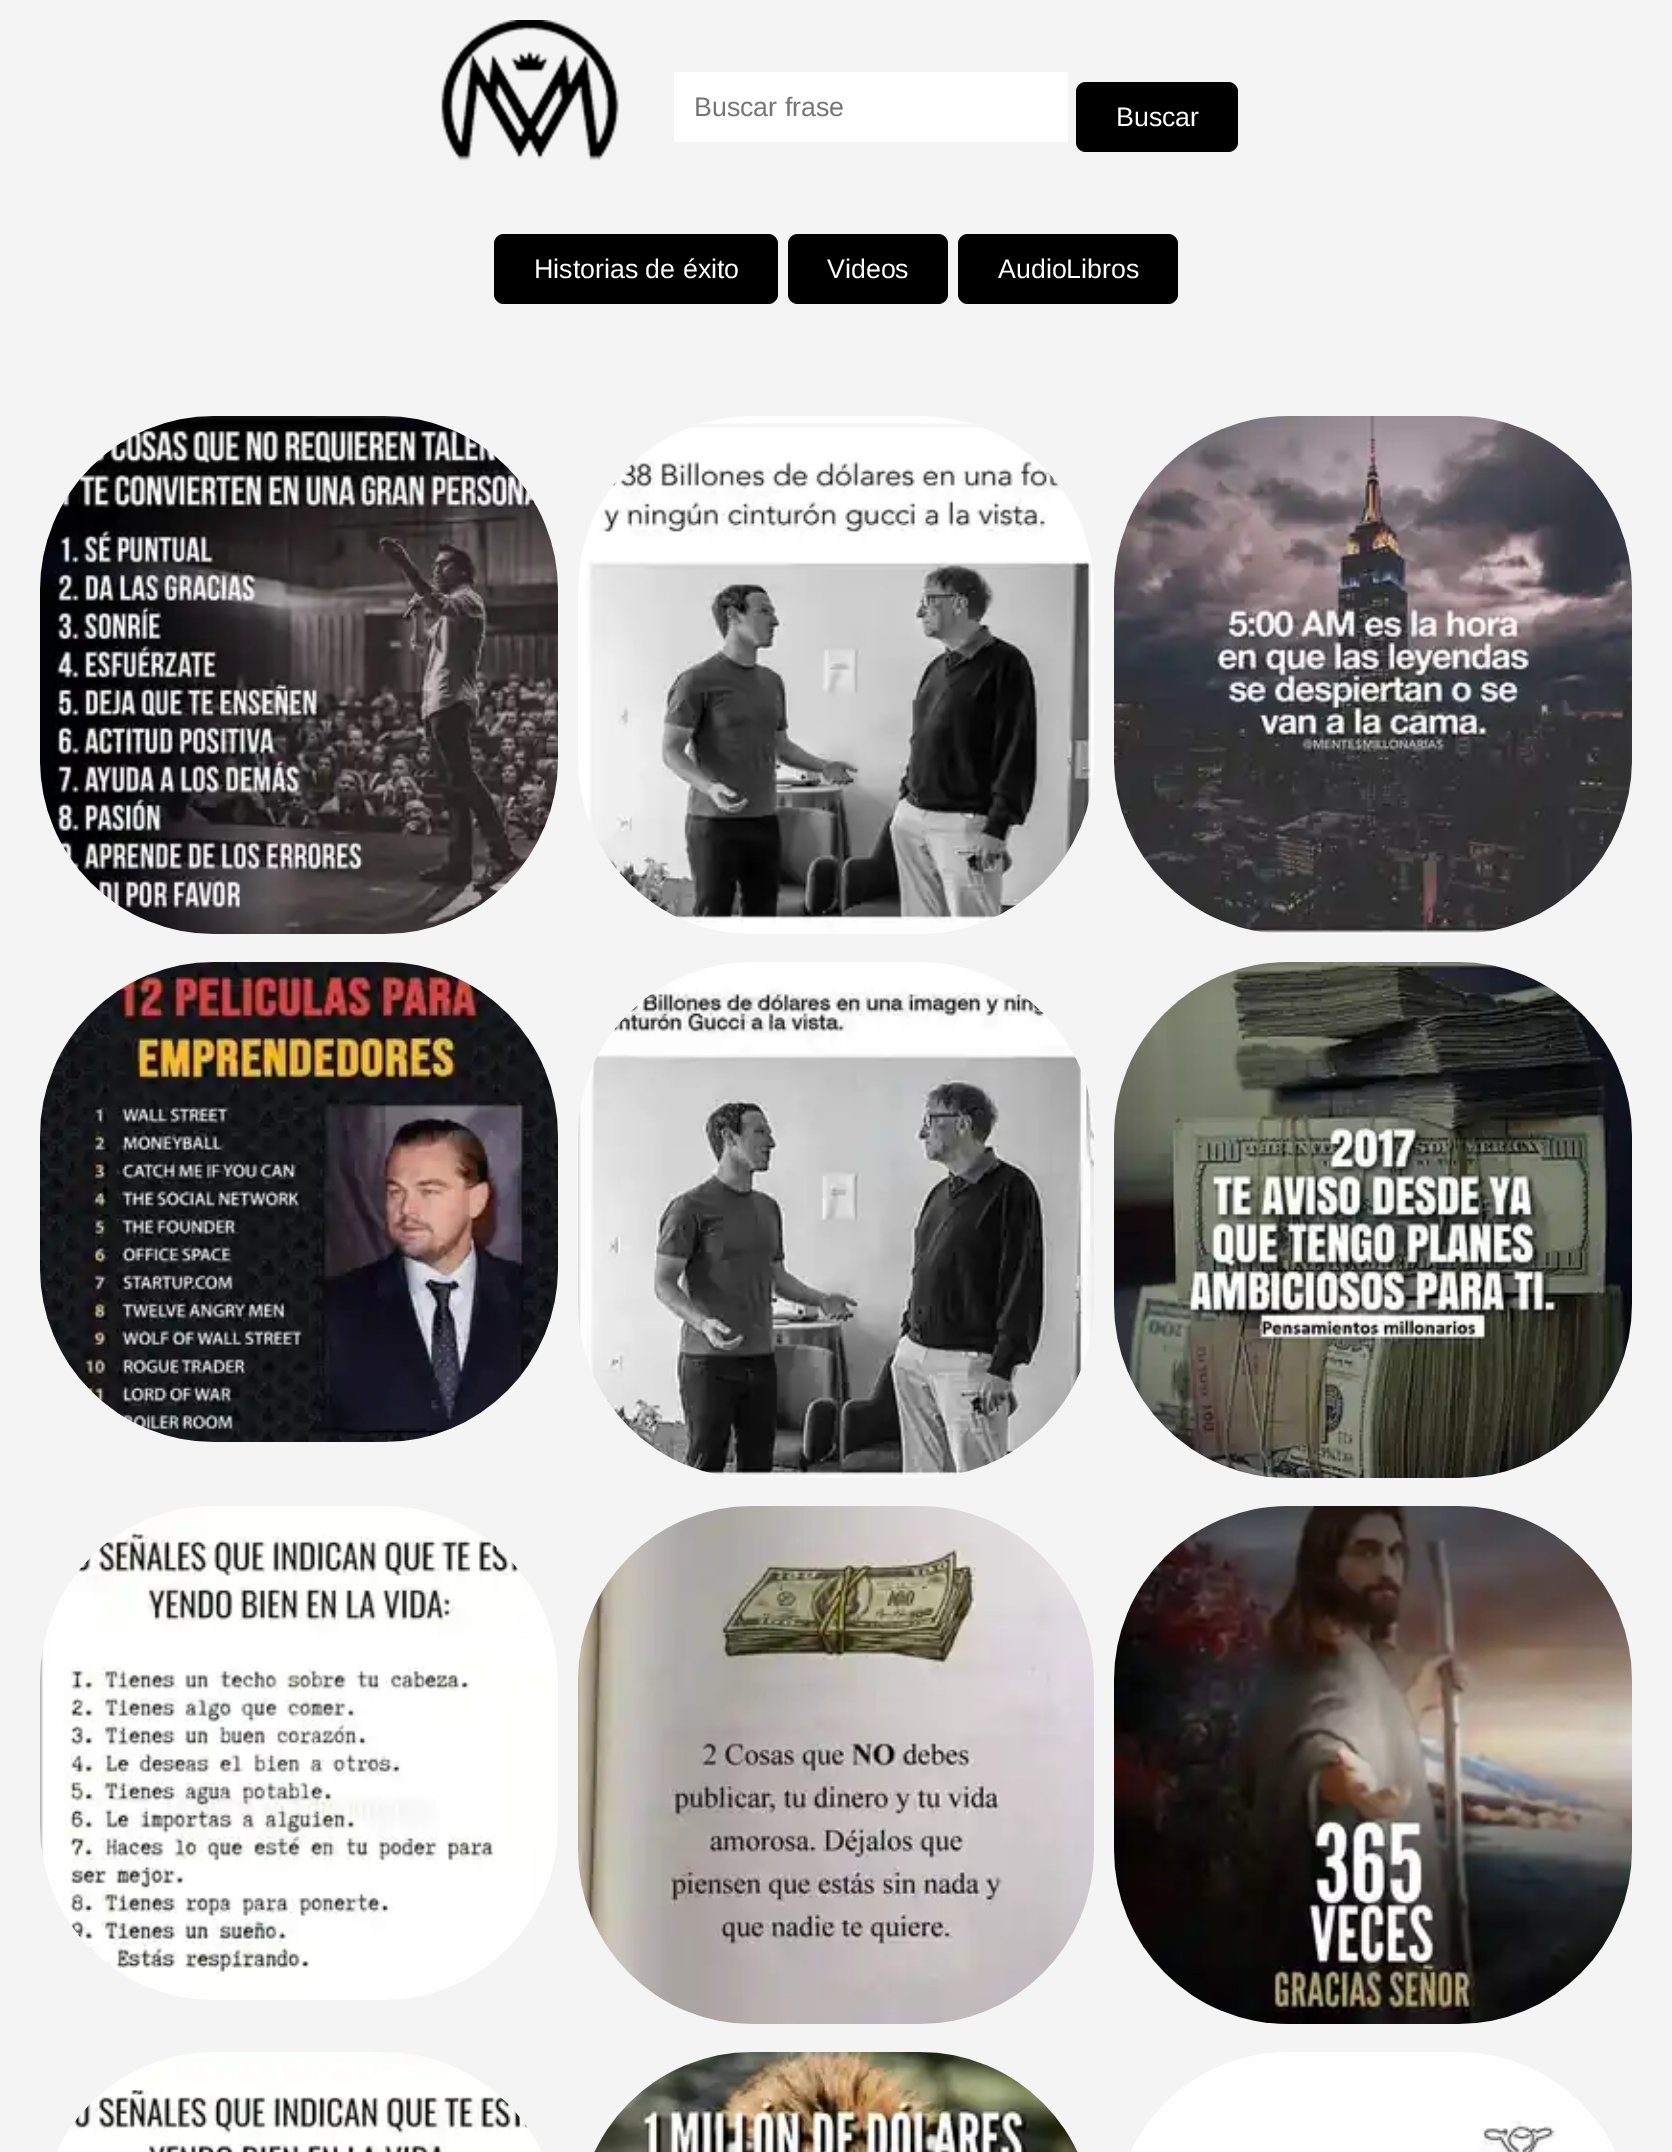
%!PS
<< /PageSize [1672 2152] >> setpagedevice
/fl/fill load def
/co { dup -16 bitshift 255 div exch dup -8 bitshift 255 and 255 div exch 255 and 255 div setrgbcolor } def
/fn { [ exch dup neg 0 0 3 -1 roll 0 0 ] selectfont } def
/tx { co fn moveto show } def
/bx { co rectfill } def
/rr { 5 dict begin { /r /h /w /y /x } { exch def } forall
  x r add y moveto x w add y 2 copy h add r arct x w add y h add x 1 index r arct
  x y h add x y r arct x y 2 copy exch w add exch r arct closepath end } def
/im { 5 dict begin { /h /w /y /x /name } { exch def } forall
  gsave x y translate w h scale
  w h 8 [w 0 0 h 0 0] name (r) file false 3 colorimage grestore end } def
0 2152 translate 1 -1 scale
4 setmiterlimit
0 0 1672 2152 16#F4F4F4 bx
(media/1.raw) 441 20 178 141 im
674 72 394 70 16#FFFFFF bx
16#000000 co
1076 82 162 70 10 rr fl
494 234 284 70 10 rr fl
788 234 160 70 10 rr fl
958 234 220 70 10 rr fl
(media/2.raw) 40 416 518 518 im
(media/3.raw) 578 416 516 518 im
(media/4.raw) 1114 416 518 518 im
(media/5.raw) 40 962 518 480 im
(media/6.raw) 578 962 516 516 im
(media/7.raw) 1114 962 518 516 im
(media/8.raw) 40 1506 518 494 im
(media/9.raw) 578 1506 516 518 im
(media/10.raw) 1114 1506 518 518 im
(media/11.raw) 57 2052 484 100 im
(media/12.raw) 594 2052 484 100 im
(media/13.raw) 1131 2052 484 100 im
(Buscar frase) 694 116 /LiberationSans-Regular 26.75 16#757575 tx
(Buscar) 1116 126 /LiberationSans-Regular 26.75 16#FFFFFF tx
(Historias de éxito) 534 278 /LiberationSans-Regular 26.75 16#FFFFFF tx
(Videos) 827 278 /LiberationSans-Regular 26.75 16#FFFFFF tx
(AudioLibros) 998 278 /LiberationSans-Regular 26.75 16#FFFFFF tx
showpage
